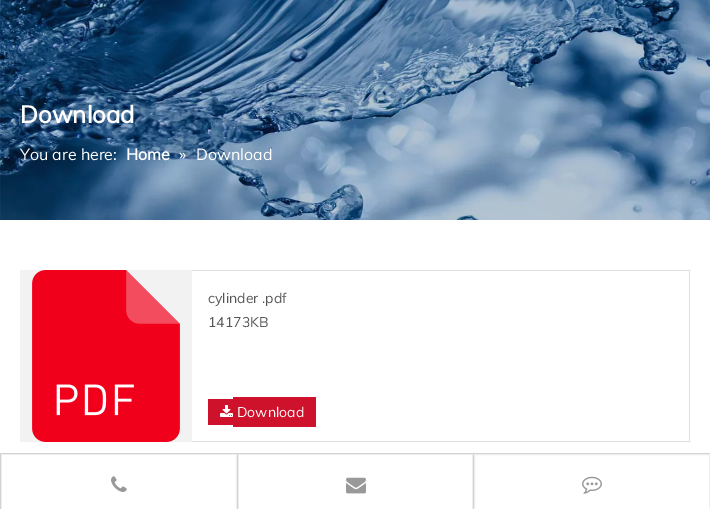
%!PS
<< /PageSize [710 509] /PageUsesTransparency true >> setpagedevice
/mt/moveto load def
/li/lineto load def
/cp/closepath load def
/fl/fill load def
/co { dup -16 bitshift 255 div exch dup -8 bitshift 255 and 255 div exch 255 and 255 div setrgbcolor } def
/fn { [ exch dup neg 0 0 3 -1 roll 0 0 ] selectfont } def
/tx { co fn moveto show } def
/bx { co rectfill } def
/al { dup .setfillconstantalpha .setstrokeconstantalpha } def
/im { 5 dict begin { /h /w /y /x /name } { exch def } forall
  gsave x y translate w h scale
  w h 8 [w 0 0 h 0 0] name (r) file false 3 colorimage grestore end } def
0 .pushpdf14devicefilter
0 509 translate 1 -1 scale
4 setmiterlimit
0 0 710 509 16#FFFFFF bx
(media/1.raw) 0 0 710 220 im
20 270 172 172 16#F2F2F2 bx
(media/2.raw) 32 270 148 172 im
16#DFDFDF co
192 270 mt 690 270 li 689 271 li 192 271 li cp fl
0.31 al
16#979797 co
690 270 mt 690 442 li 689 441 li 689 271 li cp fl
690 442 mt 192 442 li 192 441 li 689 441 li cp fl
1 al
208 399 25 26 16#CE122C bx
233 397 83 30 16#CE122C bx
(media/3.raw) 220 405 13 12 im
0 453 710 1 16#D3D3D3 bx
0 454 1 55 16#D3D3D3 bx
1 454 236 1 16#EEEEEE bx
236 454 1 55 16#EEEEEE bx
1 454 1 55 16#EEEEEE bx
(media/4.raw) 111 476 16 16 im
237 454 1 55 16#D3D3D3 bx
238 454 235 1 16#EEEEEE bx
472 454 1 55 16#EEEEEE bx
238 454 1 55 16#EEEEEE bx
(media/5.raw) 346 477 20 17 im
473 454 1 55 16#D3D3D3 bx
16#EEEEEE co
474.5 454.5 235 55 rectstroke
(media/6.raw) 582 476 20 18 im
(Download) 20 123 /Muli-Bold 24 16#FFFFFF tx
(You are here:) 20 160 /Muli-Regular 16 16#FFFFFF tx
(Home) 126 160 /Muli-Bold 16 16#FFFFFF tx
(») 179 160 /Muli-Regular 16 16#FFFFFF tx
(Download) 196 160 /Muli-Regular 16 16#FFFFFF tx
(cylinder .pdf) 208 303 /Muli-Regular 14 16#545454 tx
(14173KB) 208 327 /Muli-Regular 14 16#545454 tx
(Download) 237 417 /Muli-Regular 14 16#FFFFFF tx
.poppdf14devicefilter showpage
